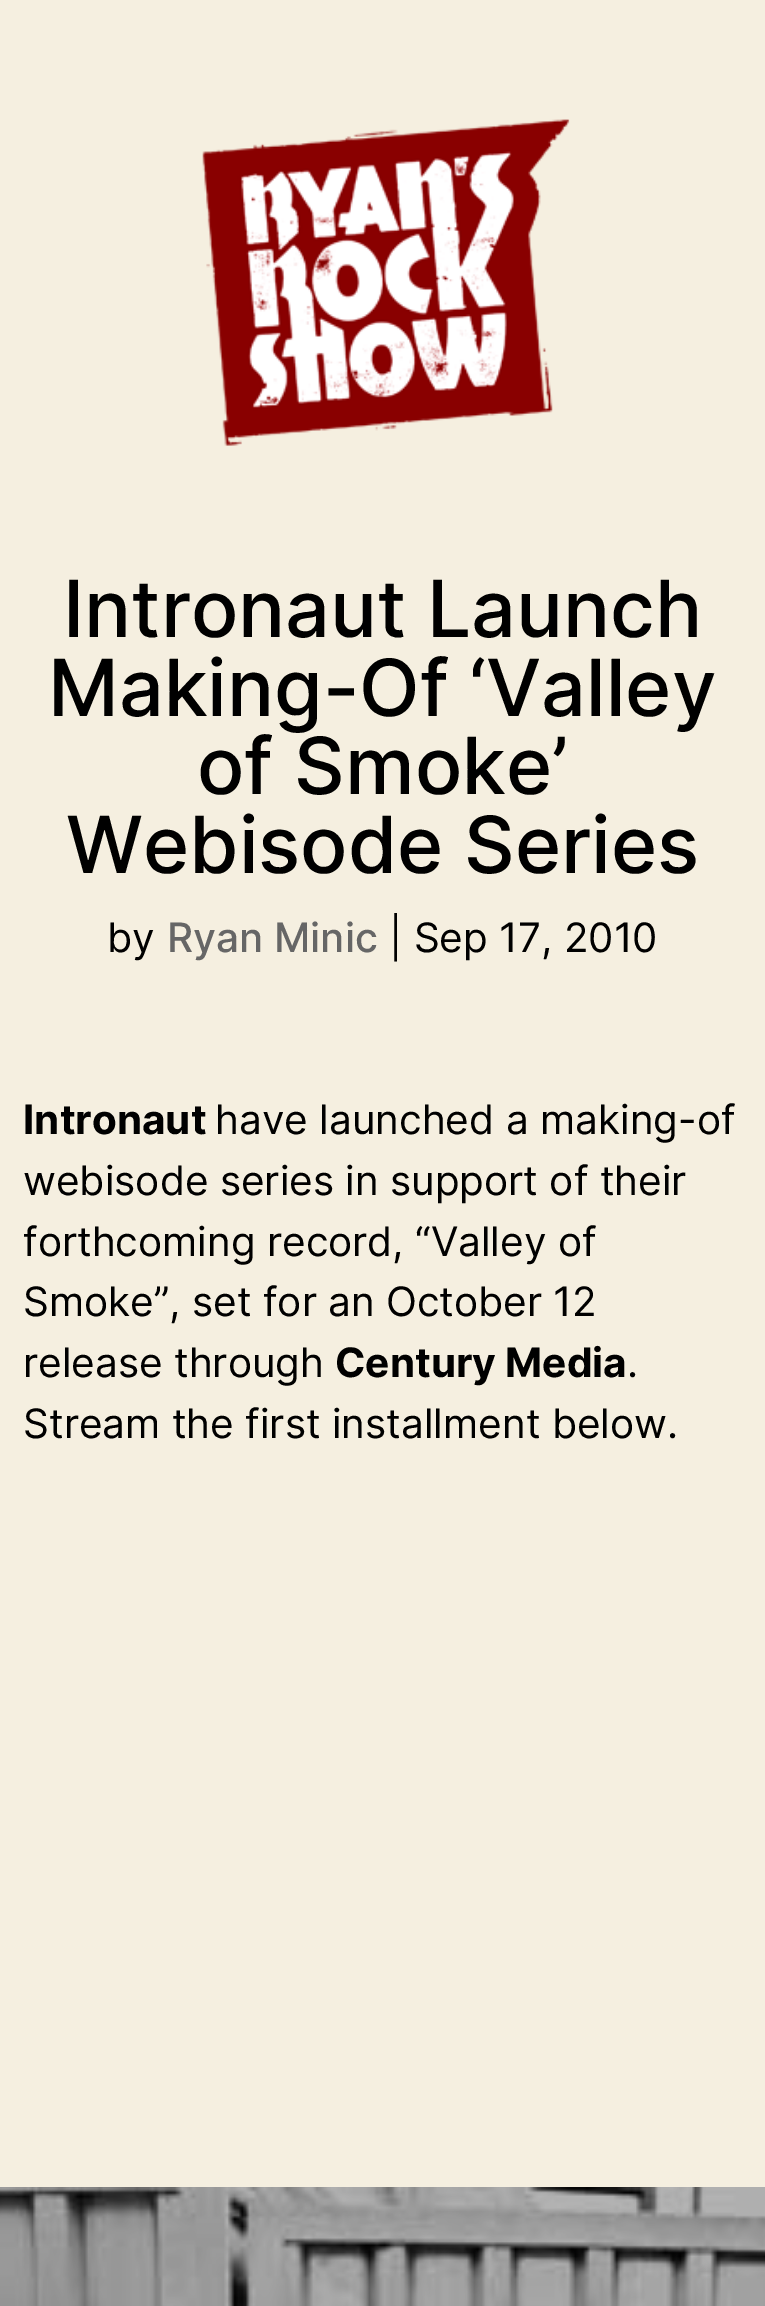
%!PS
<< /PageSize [765 2306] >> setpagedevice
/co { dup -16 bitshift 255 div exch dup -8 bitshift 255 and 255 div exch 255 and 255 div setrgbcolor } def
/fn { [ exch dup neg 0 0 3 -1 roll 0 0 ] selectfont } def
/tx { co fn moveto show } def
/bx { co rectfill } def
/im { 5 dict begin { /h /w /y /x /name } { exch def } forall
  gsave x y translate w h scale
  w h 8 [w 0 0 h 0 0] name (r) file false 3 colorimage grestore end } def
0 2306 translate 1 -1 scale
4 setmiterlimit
0 0 765 2306 16#F5EFE0 bx
(media/1.raw) 202 119 368 327 im
(media/2.raw) 0 2187 765 119 im
(Intronaut Launch) 63 637 /Inter-Medium 78.75 16#000000 tx
(Making-Of ‘Valley) 48 716 /Inter-Medium 78.75 16#000000 tx
(of Smoke’) 197 794 /Inter-Medium 78.75 16#000000 tx
(Webisode Series) 66 873 /Inter-Medium 78.75 16#000000 tx
(by) 107 952 /Inter-Regular 40.5 16#000000 tx
(Ryan Minic) 167 952 /Inter-Medium 40.5 16#666666 tx
(| Sep 17, 2010) 389 952 /Inter-Regular 40.5 16#000000 tx
(Intronaut) 23 1134 /Inter-Bold 40.5 16#000000 tx
(have launched a making-of) 215 1134 /Inter-Regular 40.5 16#000000 tx
(webisode series in support of their) 23 1195 /Inter-Regular 40.5 16#000000 tx
(forthcoming record, “Valley of) 23 1256 /Inter-Regular 40.5 16#000000 tx
(Smoke”, set for an October 12) 23 1316 /Inter-Regular 40.5 16#000000 tx
(release through) 23 1377 /Inter-Regular 40.5 16#000000 tx
(Century Media) 335 1377 /Inter-Bold 40.5 16#000000 tx
(.) 627 1377 /Inter-Regular 40.5 16#000000 tx
(Stream the first installment below.) 23 1438 /Inter-Regular 40.5 16#000000 tx
showpage
